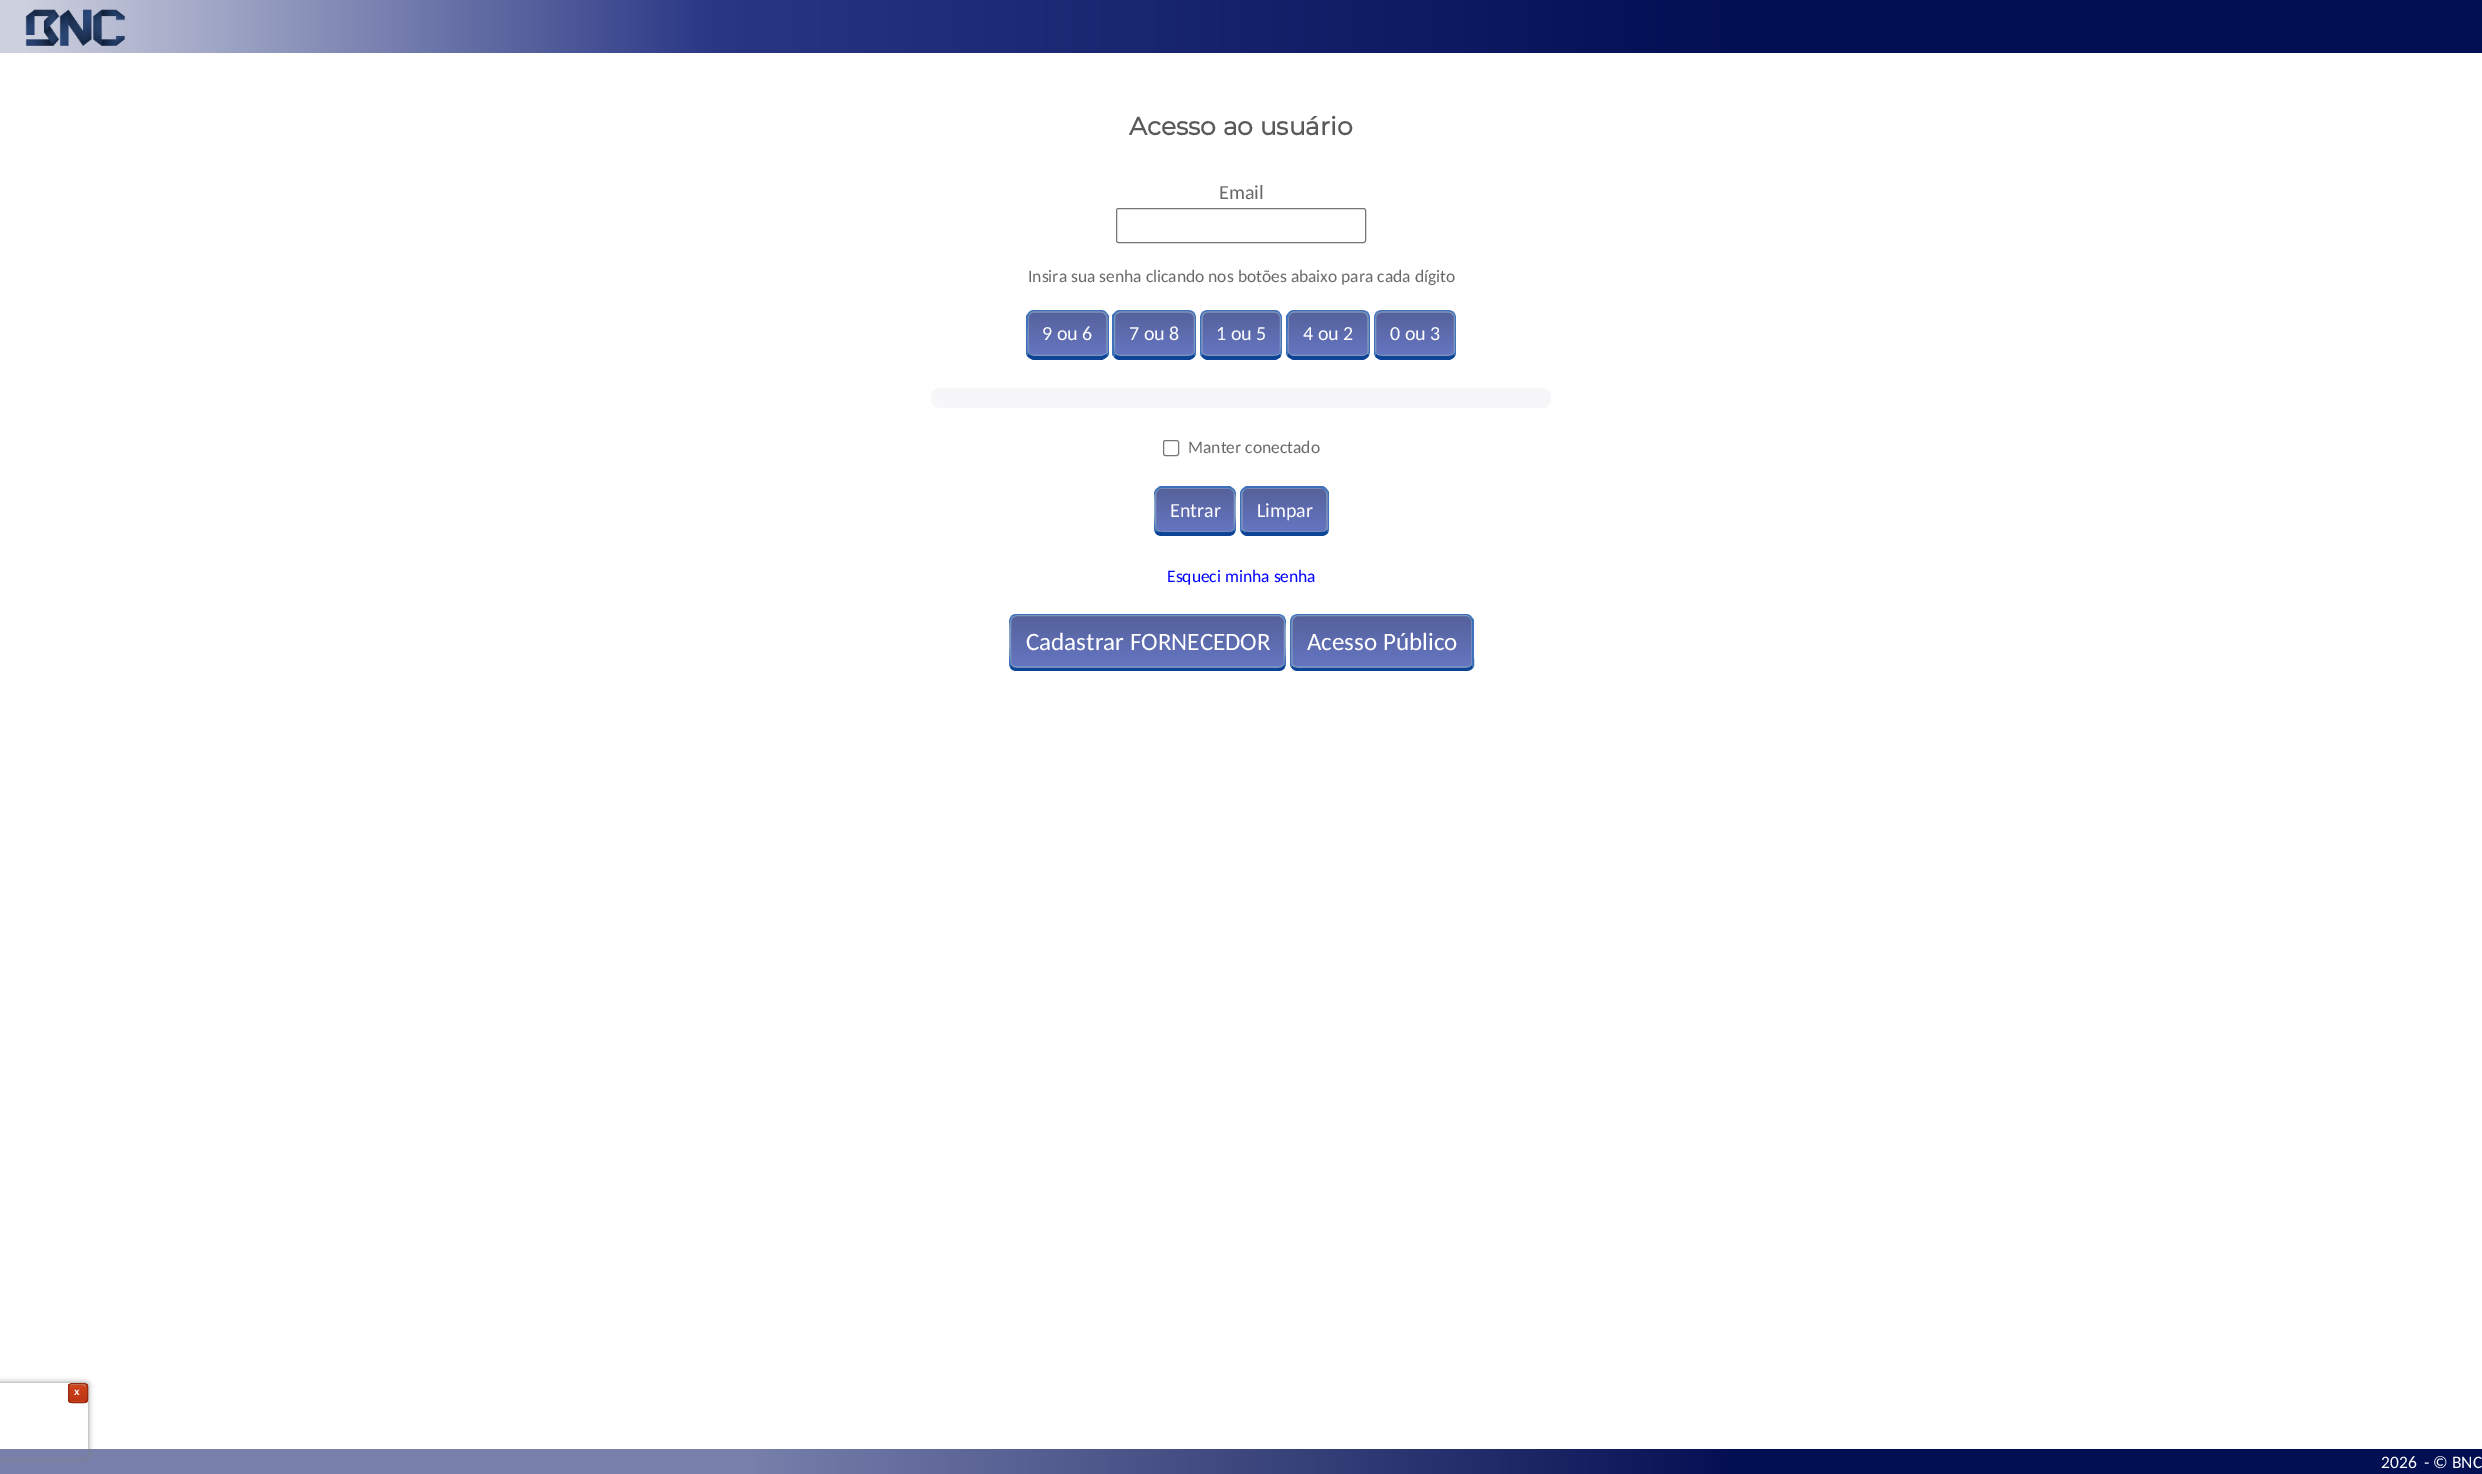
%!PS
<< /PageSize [2482 1474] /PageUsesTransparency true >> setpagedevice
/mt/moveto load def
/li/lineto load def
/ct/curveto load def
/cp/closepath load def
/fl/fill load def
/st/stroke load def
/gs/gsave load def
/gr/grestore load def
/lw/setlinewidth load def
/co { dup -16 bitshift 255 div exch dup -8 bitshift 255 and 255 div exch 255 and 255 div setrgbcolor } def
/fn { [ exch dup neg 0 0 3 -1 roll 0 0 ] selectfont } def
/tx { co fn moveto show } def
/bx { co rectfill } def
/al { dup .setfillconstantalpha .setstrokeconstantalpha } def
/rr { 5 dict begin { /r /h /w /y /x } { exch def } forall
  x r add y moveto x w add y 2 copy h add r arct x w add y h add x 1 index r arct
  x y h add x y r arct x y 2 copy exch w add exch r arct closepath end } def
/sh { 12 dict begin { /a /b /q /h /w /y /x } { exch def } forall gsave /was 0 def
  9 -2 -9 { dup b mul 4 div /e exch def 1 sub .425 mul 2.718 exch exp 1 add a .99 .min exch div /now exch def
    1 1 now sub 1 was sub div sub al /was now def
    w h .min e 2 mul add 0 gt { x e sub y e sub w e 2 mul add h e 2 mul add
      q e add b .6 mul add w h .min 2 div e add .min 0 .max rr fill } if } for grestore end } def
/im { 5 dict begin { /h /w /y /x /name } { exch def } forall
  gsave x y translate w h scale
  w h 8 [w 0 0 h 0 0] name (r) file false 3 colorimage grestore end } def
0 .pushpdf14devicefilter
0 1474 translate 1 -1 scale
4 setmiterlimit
0 0 2482 1474 16#FFFFFF bx
16#767676 co
1116.5 208.5 249 34 2 rr st
gs 1034 311 mt 1101 311 li 1104 311 1108 314 1108 318 ct 1108 352 li 1108 354 1104 356 1101 356 ct 1034 356 li 1031 356 1028 354 1028 352 ct 1028 318 li 1028 314 1031 311 1034 311 ct cp clip newpath
<< /ShadingType 2 /ColorSpace /DeviceRGB /Coords [1068 311 1068 356] /Extend [true true] /Function << /FunctionType 2 /Domain [0 1] /C0 [.337 .38 .604] /C1 [.396 .463 .765] /N 1 >> >> shfill gr
16#7D97BC co
1.2 lw
1034 312 mt 1101 312 li 1104 312 1107 314.5 1107 318 ct 1107 352 li 1107 354 1104 355.5 1101 355.5 ct 1034 355.5 li 1031 355.5 1028 354 1028 352 ct 1028 318 li 1028 314.5 1031 312 1034 312 ct cp st
16#3D72BB co
1034 310 mt 1032 310 1030 311 1029 312 ct 1030 313 li 1031 312 1032 311 1034 311 ct 1101 311 li 1103 311 1104 312 1106 313 ct 1106 312 li 1105 311 1103 310 1101 310 ct cp fl
1109 354 mt 1108 356 li 1107 354 li 1108 353 1108 353 1108 352 ct 1108 318 li 1108 316 1107 314 1106 313 ct 1106 312 li 1109 316 li cp fl
16#0D4496 co
1034 360 mt 1101 360 li 1103 360 1106 358 1108 356 ct 1107 354 li 1105 355 1103 356 1101 356 ct 1034 356 li 1032 356 1029 355 1028 353 ct 1027 356 li 1029 358 1032 360 1034 360 ct cp fl
16#3D72BB co
1026 316 mt 1029 312 li 1030 313 li 1028 317 li 1028 320 1027 352 1028 353 ct 1027 356 li 1026 354 li cp fl
gs 1120 311 mt 1188 311 li 1192 311 1195 314 1195 318 ct 1195 352 li 1195 354 1192 356 1188 356 ct 1120 356 li 1117 356 1114 354 1114 352 ct 1114 318 li 1114 314 1117 311 1120 311 ct cp clip newpath
<< /ShadingType 2 /ColorSpace /DeviceRGB /Coords [1154 311 1154 356] /Extend [true true] /Function << /FunctionType 2 /Domain [0 1] /C0 [.337 .38 .604] /C1 [.396 .463 .765] /N 1 >> >> shfill gr
16#7D97BC co
1120.5 312 mt 1188 312 li 1191.5 312 1194.5 314.5 1194.5 318 ct 1194.5 352 li 1194.5 354 1191.5 355.5 1188 355.5 ct 1120.5 355.5 li 1117 355.5 1114.5 354 1114.5 352 ct 1114.5 318 li 1114.5 314.5 1117 312 1120.5 312 ct cp st
16#3D72BB co
1120 310 mt 1118 310 1116 311 1115 312 ct 1116 313 li 1117 312 1118 311 1120 311 ct 1188 311 li 1190 311 1192 312 1193 313 ct 1194 312 li 1192 311 1190 310 1188 310 ct cp fl
1194 312 mt 1195 314 1196 316 1196 318 ct 1196 352 li 1196 353 1196 355 1195 356 ct 1194 354 li 1195 352 li 1195 318 li 1195 316 1194 314 1193 313 ct cp fl
16#0D4496 co
1120 360 mt 1188 360 li 1191 360 1194 358 1195 356 ct 1194 354 li 1193 355 1191 356 1188 356 ct 1120 356 li 1118 356 1116 355 1115 354 ct 1114 357 li 1115 359 1118 360 1120 360 ct cp fl
16#3D72BB co
1112 315 mt 1115 312 li 1116 313 li 1114 317 li 1114 320 1113 352 1115 354 ct 1114 357 li 1112 355 li cp fl
gs 1208 311 mt 1274 311 li 1278 311 1281 314 1281 318 ct 1281 352 li 1281 354 1278 356 1274 356 ct 1208 356 li 1204 356 1201 354 1201 352 ct 1201 318 li 1201 314 1204 311 1208 311 ct cp clip newpath
<< /ShadingType 2 /ColorSpace /DeviceRGB /Coords [1241 311 1241 356] /Extend [true true] /Function << /FunctionType 2 /Domain [0 1] /C0 [.337 .38 .604] /C1 [.396 .463 .765] /N 1 >> >> shfill gr
16#7D97BC co
1208 312 mt 1274.5 312 li 1278 312 1280.5 314.5 1280.5 318 ct 1280.5 352 li 1280.5 354 1278 355.5 1274.5 355.5 ct 1208 355.5 li 1204.5 355.5 1202 354 1202 352 ct 1202 318 li 1202 314.5 1204.5 312 1208 312 ct cp st
16#3D72BB co
1208 310 mt 1206 310 1204 311 1202 312 ct 1203 313 li 1204 312 1206 311 1208 311 ct 1274 311 li 1276 311 1278 312 1279 313 ct 1280 313 li 1279 311 1277 310 1274 310 ct cp fl
1280 313 mt 1281 314 1282 316 1282 318 ct 1282 352 li 1281 356 li 1280 354 li 1282 352 1281 320 1281 317 ct 1279 313 li cp fl
16#0D4496 co
1208 360 mt 1274 360 li 1277 360 1280 358 1281 356 ct 1280 354 li 1279 355 1277 356 1274 356 ct 1208 356 li 1205 356 1203 355 1202 354 ct 1201 356 li 1203 358 1205 360 1208 360 ct cp fl
16#3D72BB co
1200 318 mt 1200 352 li 1200 353 1200 355 1201 356 ct 1202 354 li 1201 352 li 1201 318 li 1201 316 1202 314 1203 313 ct 1202 312 li 1201 314 1200 316 1200 318 ct cp fl
gs 1294 311 mt 1362 311 li 1366 311 1369 314 1369 318 ct 1369 352 li 1369 354 1366 356 1362 356 ct 1294 356 li 1291 356 1288 354 1288 352 ct 1288 318 li 1288 314 1291 311 1294 311 ct cp clip newpath
<< /ShadingType 2 /ColorSpace /DeviceRGB /Coords [1328 311 1328 356] /Extend [true true] /Function << /FunctionType 2 /Domain [0 1] /C0 [.337 .38 .604] /C1 [.396 .463 .765] /N 1 >> >> shfill gr
16#7D97BC co
1294 312 mt 1362 312 li 1365.5 312 1368 314.5 1368 318 ct 1368 352 li 1368 354 1365.5 355.5 1362 355.5 ct 1294 355.5 li 1291 355.5 1288 354 1288 352 ct 1288 318 li 1288 314.5 1291 312 1294 312 ct cp st
16#3D72BB co
1294 310 mt 1292 310 1290 311 1289 312 ct 1290 313 li 1291 312 1292 311 1294 311 ct 1362 311 li 1364 311 1366 312 1367 313 ct 1368 312 li 1366 311 1364 310 1362 310 ct cp fl
1370 352 mt 1370 318 li 1370 316 1369 314 1368 312 ct 1367 313 li 1368 314 1369 316 1369 318 ct 1369 352 li 1368 354 li 1369 356 li cp fl
16#0D4496 co
1294 360 mt 1362 360 li 1365 360 1367 358 1369 356 ct 1368 354 li 1364 356 li 1292 356 li 1291 355 1289 355 1288 353 ct 1287 356 li 1289 358 1292 360 1294 360 ct cp fl
16#3D72BB co
1286 316 mt 1289 312 li 1290 313 li 1288 317 li 1288 320 1287 352 1288 353 ct 1287 356 li 1286 354 li cp fl
gs 1382 311 mt 1448 311 li 1452 311 1455 314 1455 318 ct 1455 352 li 1455 354 1452 356 1448 356 ct 1382 356 li 1378 356 1375 354 1375 352 ct 1375 318 li 1375 314 1378 311 1382 311 ct cp clip newpath
<< /ShadingType 2 /ColorSpace /DeviceRGB /Coords [1415 311 1415 356] /Extend [true true] /Function << /FunctionType 2 /Domain [0 1] /C0 [.337 .38 .604] /C1 [.396 .463 .765] /N 1 >> >> shfill gr
16#7D97BC co
1382 312 mt 1448 312 li 1451.5 312 1454.5 314.5 1454.5 318 ct 1454.5 352 li 1454.5 354 1451.5 355.5 1448 355.5 ct 1382 355.5 li 1378.5 355.5 1375.5 354 1375.5 352 ct 1375.5 318 li 1375.5 314.5 1378.5 312 1382 312 ct cp st
16#3D72BB co
1382 310 mt 1380 310 1378 311 1376 312 ct 1377 313 li 1378 312 1380 311 1382 311 ct 1448 311 li 1450 311 1452 312 1453 313 ct 1454 312 li 1452 311 1450 310 1448 310 ct cp fl
1454 312 mt 1455 314 1456 316 1456 318 ct 1456 352 li 1456 353 1456 355 1455 356 ct 1454 354 li 1455 352 li 1455 318 li 1455 316 1454 314 1453 313 ct cp fl
16#0D4496 co
1382 360 mt 1448 360 li 1451 360 1454 358 1455 356 ct 1454 354 li 1453 355 1451 356 1448 356 ct 1382 356 li 1379 356 1377 355 1376 354 ct 1375 356 li 1376 358 1379 360 1382 360 ct cp fl
16#3D72BB co
1376 312 mt 1375 314 1374 316 1374 318 ct 1374 352 li 1374 353 1374 355 1375 356 ct 1376 354 li 1375 352 li 1375 318 li 1375 316 1376 314 1377 313 ct cp fl
16#F7F7F9 co
931 388 620 20 8 rr fl
16#767676 co
1 lw
1163.5 440.5 15 15 2 rr st
gs 1162 488 mt 1228 488 li 1232 488 1235 491 1235 494 ct 1235 528 li 1235 531 1232 532 1228 532 ct 1162 532 li 1158 532 1155 531 1155 528 ct 1155 494 li 1155 491 1158 488 1162 488 ct cp clip newpath
<< /ShadingType 2 /ColorSpace /DeviceRGB /Coords [1195 488 1195 533] /Extend [true true] /Function << /FunctionType 2 /Domain [0 1] /C0 [.337 .38 .604] /C1 [.396 .463 .765] /N 1 >> >> shfill gr
16#7D97BC co
1.2 lw
1162 488 mt 1228 488 li 1231.5 488 1234.5 491 1234.5 494 ct 1234.5 528 li 1234.5 530.5 1231.5 532 1228 532 ct 1162 532 li 1158.5 532 1155.5 530.5 1155.5 528 ct 1155.5 494 li 1155.5 491 1158.5 488 1162 488 ct cp st
16#3D72BB co
1162 488 mt 1160 488 1158 489 1157 490 ct 1156 489 li 1160 486 li 1230 486 li 1234 489 li 1233 490 li 1232 489 1230 488 1228 488 ct cp fl
1234 489 mt 1235 490 1236 492 1236 494 ct 1236 528 li 1236 530 1236 531 1235 532 ct 1234 530 li 1236 529 1236 496 1235 493 ct 1233 490 li cp fl
16#0D4496 co
1235 532 mt 1234 535 1231 536 1228 536 ct 1162 536 li 1159 536 1156 535 1155 532 ct 1156 530 li 1157 532 1159 532 1162 532 ct 1228 532 li 1231 532 1233 532 1234 530 ct cp fl
16#3D72BB co
1155 532 mt 1154 531 1154 530 1154 528 ct 1154 494 li 1154 492 1155 490 1156 489 ct 1157 490 li 1155 493 li 1154 496 1154 529 1156 530 ct cp fl
gs 1248 488 mt 1321 488 li 1324 488 1328 491 1328 494 ct 1328 528 li 1328 531 1324 532 1321 532 ct 1248 532 li 1244 532 1241 531 1241 528 ct 1241 494 li 1241 491 1244 488 1248 488 ct cp clip newpath
<< /ShadingType 2 /ColorSpace /DeviceRGB /Coords [1284 488 1284 533] /Extend [true true] /Function << /FunctionType 2 /Domain [0 1] /C0 [.337 .38 .604] /C1 [.396 .463 .765] /N 1 >> >> shfill gr
16#7D97BC co
1248 488 mt 1321 488 li 1324 488 1327 491 1327 494 ct 1327 528 li 1327 530.5 1324 532 1321 532 ct 1248 532 li 1244.5 532 1242 530.5 1242 528 ct 1242 494 li 1242 491 1244.5 488 1248 488 ct cp st
16#3D72BB co
1248 488 mt 1246 488 1245 489 1243 490 ct 1242 489 li 1246 486 li 1323 486 li 1326 488 li 1325 490 li 1324 489 1322 488 1321 488 ct cp fl
1329 530 mt 1328 533 li 1327 530 li 1328 529 li 1328 493 li 1325 490 li 1326 488 li 1329 492 li cp fl
16#0D4496 co
1328 533 mt 1326 535 1324 536 1321 536 ct 1248 536 li 1245 536 1243 535 1241 532 ct 1242 530 li 1243 532 1245 532 1248 532 ct 1321 532 li 1323 532 1325 532 1327 530 ct cp fl
16#3D72BB co
1240 494 mt 1240 528 li 1240 530 1240 531 1241 532 ct 1242 530 li 1241 529 li 1241 493 li 1243 490 li 1242 489 li 1241 490 1240 492 1240 494 ct cp fl
gs 1017 615 mt 1278 615 li 1282 615 1285 618 1285 622 ct 1285 663 li 1285 666 1282 668 1278 668 ct 1017 668 li 1013 668 1010 666 1010 663 ct 1010 622 li 1010 618 1013 615 1017 615 ct cp clip newpath
<< /ShadingType 2 /ColorSpace /DeviceRGB /Coords [1148 615 1148 668] /Extend [true true] /Function << /FunctionType 2 /Domain [0 1] /C0 [.337 .38 .604] /C1 [.396 .463 .765] /N 1 >> >> shfill gr
16#7D97BC co
1017 615.5 mt 1278 615.5 li 1281.5 615.5 1284.5 618.5 1284.5 622 ct 1284.5 663 li 1284.5 665.5 1281.5 667 1278 667 ct 1017 667 li 1013.5 667 1010.5 665.5 1010.5 663 ct 1010.5 622 li 1010.5 618.5 1013.5 615.5 1017 615.5 ct cp st
16#3D72BB co
1017 614 mt 1014 614 1012 615 1011 616 ct 1012 617 li 1013 616 1015 615 1017 615 ct 1278 615 li 1280 615 1282 616 1283 617 ct 1284 616 li 1282 615 1280 614 1278 614 ct cp fl
1285 667 mt 1286 666 1286 665 1286 663 ct 1286 622 li 1286 620 1285 618 1284 616 ct 1283 617 li 1285 621 li 1286 624 1286 663 1284 665 ct cp fl
16#0D4496 co
1285 667 mt 1284 670 1281 671 1278 671 ct 1017 671 li 1014 671 1011 670 1010 667 ct 1011 665 li 1012 667 1014 668 1017 668 ct 1278 668 li 1281 668 1283 667 1284 665 ct cp fl
16#3D72BB co
1011 616 mt 1010 618 1009 620 1009 622 ct 1009 663 li 1009 665 1009 666 1010 667 ct 1011 665 li 1009 663 1009 624 1010 621 ct 1012 617 li cp fl
gs 1298 615 mt 1466 615 li 1469 615 1472 618 1472 622 ct 1472 663 li 1472 666 1469 668 1466 668 ct 1298 668 li 1294 668 1291 666 1291 663 ct 1291 622 li 1291 618 1294 615 1298 615 ct cp clip newpath
<< /ShadingType 2 /ColorSpace /DeviceRGB /Coords [1382 615 1382 668] /Extend [true true] /Function << /FunctionType 2 /Domain [0 1] /C0 [.337 .38 .604] /C1 [.396 .463 .765] /N 1 >> >> shfill gr
16#7D97BC co
1298 615.5 mt 1466 615.5 li 1469 615.5 1472 618.5 1472 622 ct 1472 663 li 1472 665.5 1469 667 1466 667 ct 1298 667 li 1294.5 667 1292 665.5 1292 663 ct 1292 622 li 1292 618.5 1294.5 615.5 1298 615.5 ct cp st
16#3D72BB co
1298 614 mt 1296 614 1294 615 1292 616 ct 1293 617 li 1294 616 1296 615 1298 615 ct 1466 615 li 1468 615 1469 616 1470 617 ct 1471 616 li 1470 615 1468 614 1466 614 ct cp fl
1471 616 mt 1474 620 li 1474 658 li 1474 661 1475 665 1473 668 ct 1472 665 li 1472 621 li 1470 617 li cp fl
16#0D4496 co
1473 668 mt 1471 670 1469 671 1466 671 ct 1298 671 li 1295 671 1293 670 1291 667 ct 1292 666 li 1293 667 1295 668 1298 668 ct 1466 668 li 1468 668 1471 667 1472 665 ct cp fl
16#3D72BB co
1290 622 mt 1290 663 li 1290 665 1290 666 1291 667 ct 1292 666 li 1291 664 li 1291 621 li 1293 617 li 1292 616 li 1291 618 1290 620 1290 622 ct cp fl
gs 0 1449 mt 2482 1449 li 2482 1474 li 0 1474 li cp clip newpath
<< /ShadingType 2 /ColorSpace /DeviceRGB /Coords [0 1462 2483 1462] /Extend [true true] /Function << /FunctionType 3 /Domain [0 1] /Functions [<< /FunctionType 2 /Domain [0 1] /C0 [.471 .502 .671] /C1 [.471 .502 .671] /N 1 >> << /FunctionType 2 /Domain [0 1] /C0 [.471 .502 .671] /C1 [.012 .059 .325] /N 1 >> << /FunctionType 2 /Domain [0 1] /C0 [.012 .059 .325] /C1 [.012 .059 .325] /N 1 >>] /Bounds [.3 .7] /Encode [0 1 0 1 0 1] >> >> shfill gr
gs
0 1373 mt 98 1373 li 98 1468 li 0 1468 li cp -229.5 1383 mt 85.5 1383 li 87 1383 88 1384 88 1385.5 ct 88 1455.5 li 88 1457 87 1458 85.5 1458 ct -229.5 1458 li -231 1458 -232 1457 -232 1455.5 ct -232 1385.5 li -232 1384 -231 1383 -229.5 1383 ct cp eoclip newpath
16#808080 co
-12 1383 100 75 2.5 3 1 sh
gr
gs
68 1383 20 20 4 rr clip newpath
gs 68 1384 mt 88 1384 li 88 1401 li 68 1401 li cp clip newpath
<< /ShadingType 2 /ColorSpace /DeviceRGB /Coords [78 1384 78 1401] /Extend [true true] /Function << /FunctionType 3 /Domain [0 1] /Functions [<< /FunctionType 2 /Domain [0 1] /C0 [.816 .271 .106] /C1 [.816 .271 .106] /N 1 >> << /FunctionType 2 /Domain [0 1] /C0 [.816 .271 .106] /C1 [.737 .2 .082] /N 1 >>] /Bounds [.05] /Encode [0 1 0 1] >> >> shfill gr
gs 68 1401 mt 88 1401 li 88 1403 li 68 1403 li cp clip newpath
<< /ShadingType 2 /ColorSpace /DeviceRGB /Coords [78 1401 78 1419] /Extend [true true] /Function << /FunctionType 3 /Domain [0 1] /Functions [<< /FunctionType 2 /Domain [0 1] /C0 [.816 .271 .106] /C1 [.816 .271 .106] /N 1 >> << /FunctionType 2 /Domain [0 1] /C0 [.816 .271 .106] /C1 [.737 .2 .082] /N 1 >>] /Bounds [.05] /Encode [0 1 0 1] >> >> shfill gr
gr
16#CF866C co
71 1385 mt 73.5 1385 85 1384 86 1386.5 ct 86 1385 85 1384 83.5 1384 ct 71.5 1384 li 70.5 1384 69 1385 69 1386 ct 69.5 1385.5 70 1385 71 1385 ct cp fl
16#942911 co
1 lw
68.5 1383.5 19 19 3.5 rr st
gs 0 0 mt 2482 0 li 2482 53 li 0 53 li cp clip newpath
<< /ShadingType 2 /ColorSpace /DeviceRGB /Coords [0 26 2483 26] /Extend [true true] /Function << /FunctionType 3 /Domain [0 1] /Functions [<< /FunctionType 2 /Domain [0 1] /C0 [.804 .816 .871] /C1 [.804 .816 .871] /N 1 >> << /FunctionType 2 /Domain [0 1] /C0 [.804 .816 .871] /C1 [.157 .212 .518] /N 1 >> << /FunctionType 2 /Domain [0 1] /C0 [.157 .212 .518] /C1 [.012 .059 .325] /N 1 >> << /FunctionType 2 /Domain [0 1] /C0 [.012 .059 .325] /C1 [.012 .059 .325] /N 1 >>] /Bounds [.01 .29 .7] /Encode [0 1 0 1 0 1 0 1] >> >> shfill gr
(media/1.raw) 25 9 100 37 im
(Acesso ao usuário) 1129 135 /Montserrat-Bold 25 16#5A5A5A tx
(Email) 1219 199 /Carlito-Regular 20 16#696969 tx
(Insira sua senha clicando nos botões abaixo para cada dígito) 1028 282 /Carlito-Regular 17.5 16#696969 tx
(9 ou 6) 1042 340 /Carlito-Regular 20 16#FFFFFF tx
(7 ou 8) 1129 340 /Carlito-Regular 20 16#FFFFFF tx
(1 ou 5) 1216 340 /Carlito-Regular 20 16#FFFFFF tx
(4 ou 2) 1303 340 /Carlito-Regular 20 16#FFFFFF tx
(0 ou 3) 1390 340 /Carlito-Regular 20 16#FFFFFF tx
(Manter conectado) 1188 453 /Carlito-Regular 17.5 16#696969 tx
(Entrar) 1170 517 /Carlito-Regular 20 16#FFFFFF tx
(Limpar) 1257 517 /Carlito-Regular 20 16#FFFFFF tx
(Esqueci minha senha) 1167 582 /Carlito-Regular 17.5 16#0000FF tx
(Cadastrar FORNECEDOR) 1026 650 /Carlito-Regular 25 16#FFFFFF tx
(Acesso Público) 1307 650 /Carlito-Regular 25 16#FFFFFF tx
(x) 74 1395 /LiberationSans-Bold 10 16#FFFFFF tx
(2026) 2381 1468 /Carlito-Regular 17.5 16#FFFFFF tx
(- © BNC) 2424 1468 /Carlito-Regular 17.5 16#FFFFFF tx
.poppdf14devicefilter showpage
